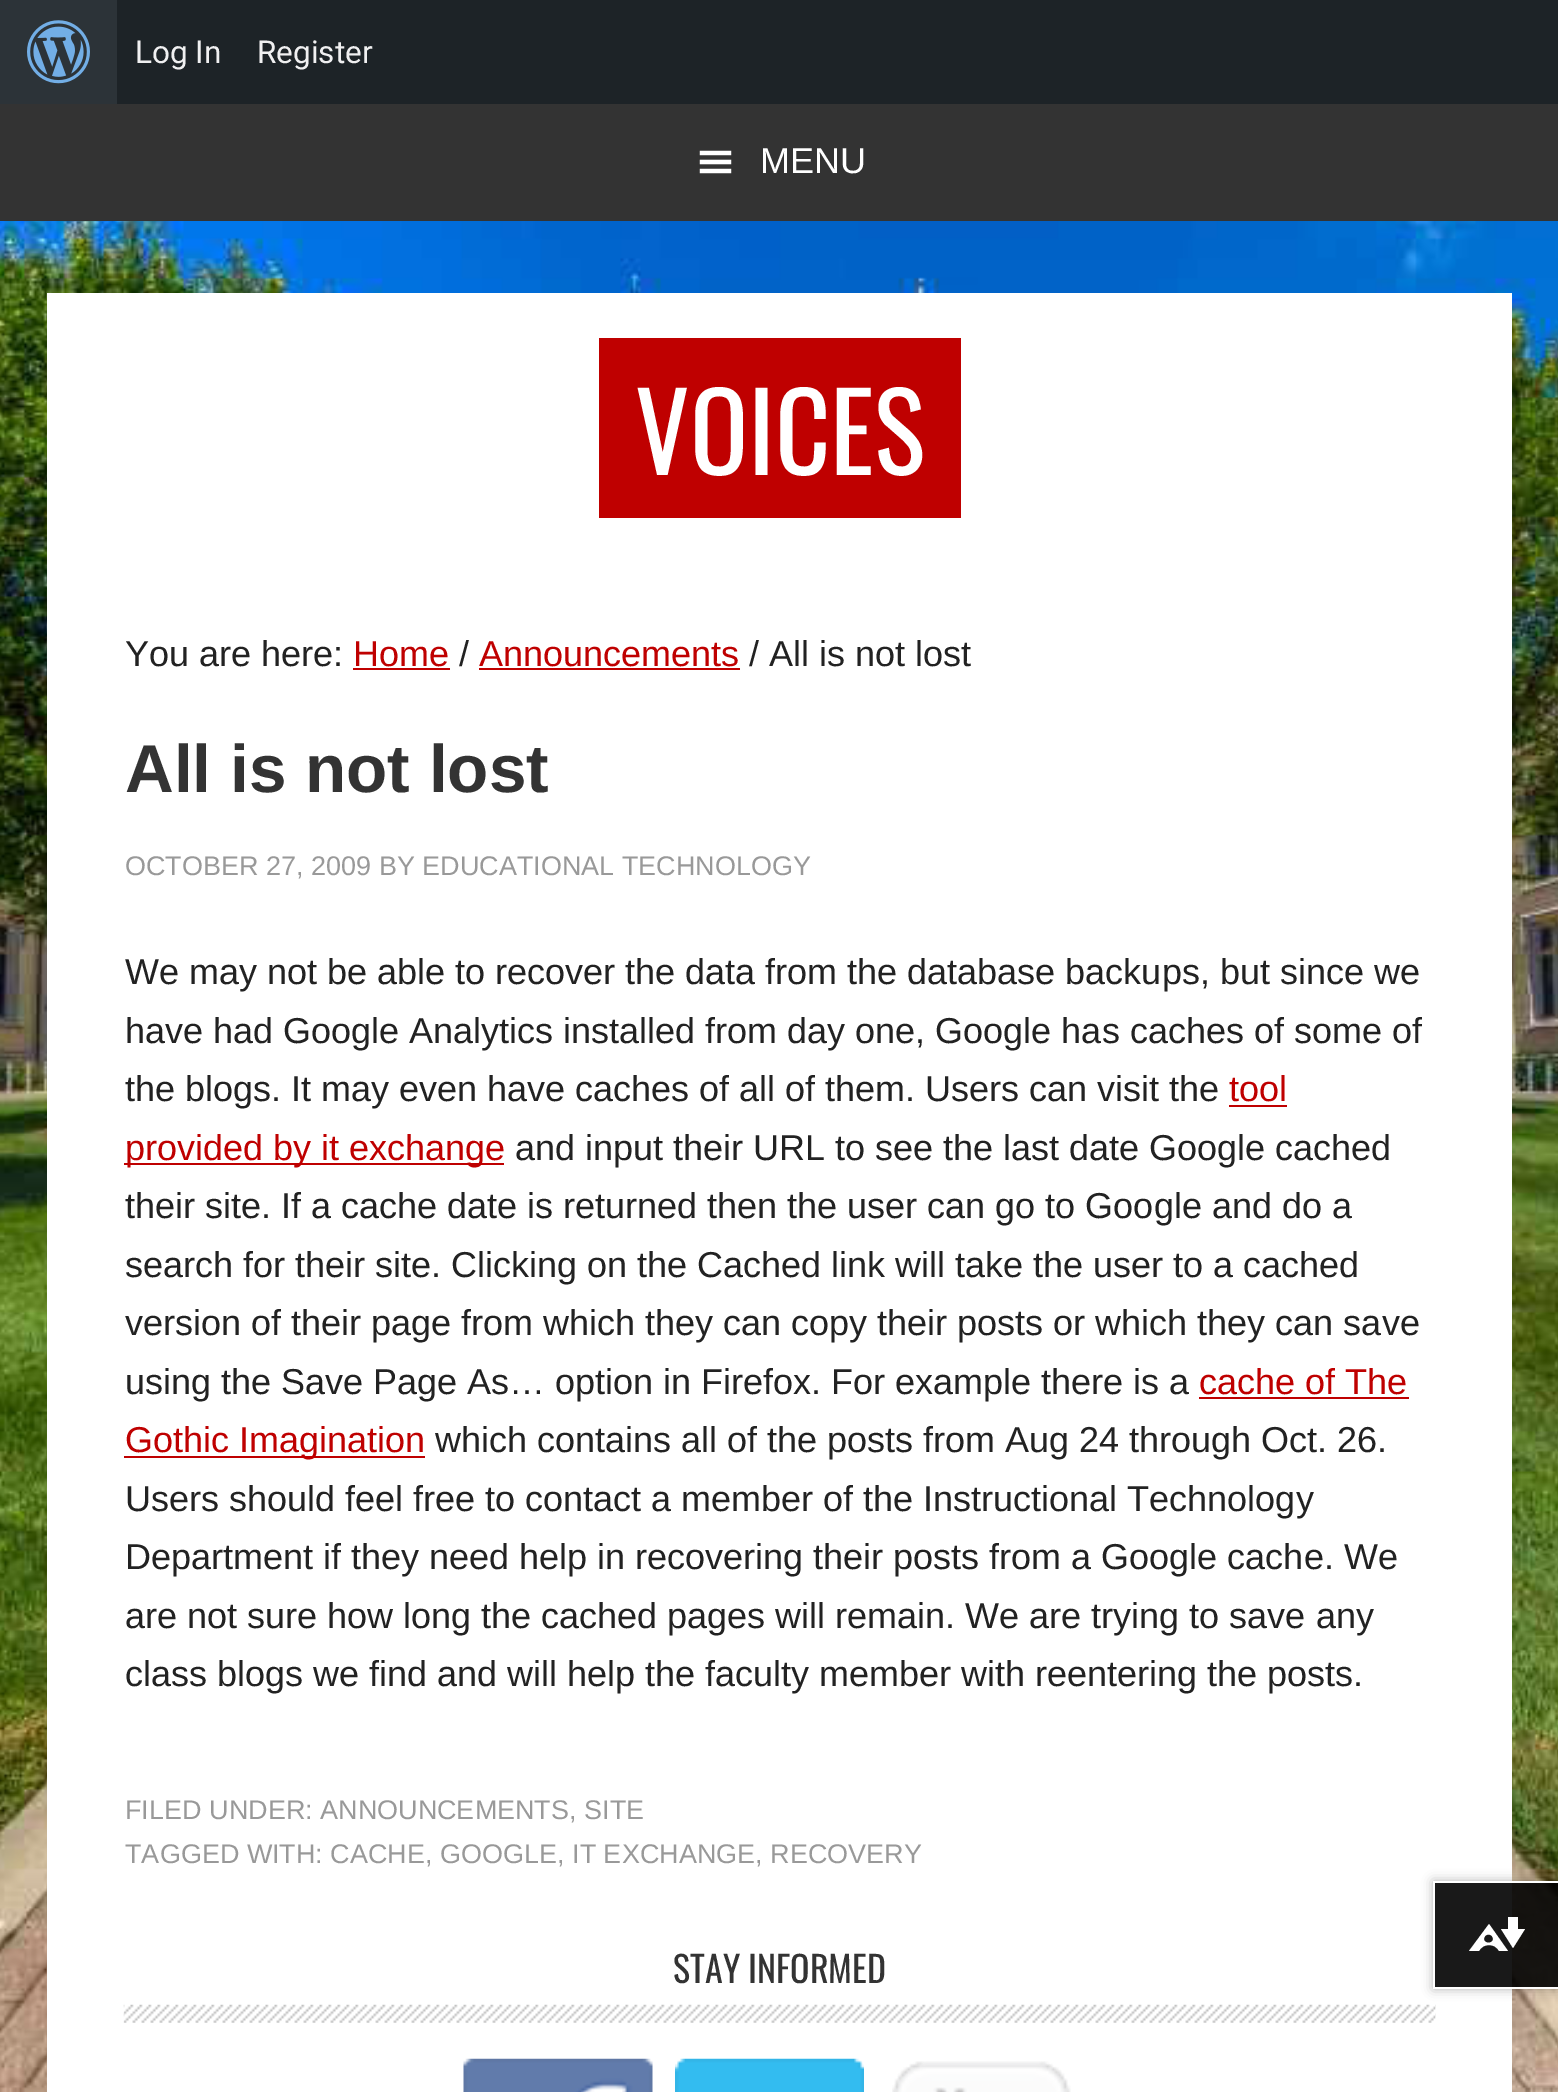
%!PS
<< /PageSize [1558 2092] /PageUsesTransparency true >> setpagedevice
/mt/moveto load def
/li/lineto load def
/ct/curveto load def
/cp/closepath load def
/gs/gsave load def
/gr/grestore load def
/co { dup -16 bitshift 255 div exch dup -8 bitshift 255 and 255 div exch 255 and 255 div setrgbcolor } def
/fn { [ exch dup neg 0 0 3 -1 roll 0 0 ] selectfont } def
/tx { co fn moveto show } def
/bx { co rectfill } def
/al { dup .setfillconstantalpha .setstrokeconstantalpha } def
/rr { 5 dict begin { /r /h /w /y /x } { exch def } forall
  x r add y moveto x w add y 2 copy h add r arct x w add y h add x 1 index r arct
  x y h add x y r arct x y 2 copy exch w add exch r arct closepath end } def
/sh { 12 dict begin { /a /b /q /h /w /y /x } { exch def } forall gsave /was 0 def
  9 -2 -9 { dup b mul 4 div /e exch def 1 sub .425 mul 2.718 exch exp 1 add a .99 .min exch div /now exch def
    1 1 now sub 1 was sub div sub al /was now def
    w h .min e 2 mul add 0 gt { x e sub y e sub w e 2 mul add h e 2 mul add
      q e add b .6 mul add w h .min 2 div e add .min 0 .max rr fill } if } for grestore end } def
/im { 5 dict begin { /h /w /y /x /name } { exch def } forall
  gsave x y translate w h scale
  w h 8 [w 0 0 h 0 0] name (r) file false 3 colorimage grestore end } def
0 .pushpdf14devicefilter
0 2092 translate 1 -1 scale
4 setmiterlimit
0 0 1558 2092 16#FFFFFF bx
(media/1.raw) 0 221 1558 1871 im
117 0 1441 104 16#1D2327 bx
0 0 117 104 16#2C3338 bx
(media/2.raw) 27 20 63 64 im
0 104 1558 117 16#333333 bx
(media/3.raw) 699 150 33 24 im
47 293 1465 1799 16#FFFFFF bx
599 338 362 180 16#BF0000 bx
353 668 97 2 16#BF0000 bx
479 668 261 2 16#BF0000 bx
1229 1105 58 2 16#BF0000 bx
124 1163 380 2 16#BF0000 bx
1199 1397 210 2 16#BF0000 bx
124 1456 301 2 16#BF0000 bx
(media/4.raw) 123 2004 1313 19 im
(media/5.raw) 463 2058 190 34 im
(media/6.raw) 675 2058 189 34 im
(media/7.raw) 892 2061 179 31 im
gs
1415 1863 mt 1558 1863 li 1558 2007 li 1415 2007 li cp 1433 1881 mt 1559 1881 li 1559 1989 li 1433 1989 li cp eoclip newpath
16#000000 co
1433 1881 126 108 0 5.5 .3 sh
gr
0.9 al
1435 1883 123 104 16#000000 bx
1 al
1433 1881 125 2 16#FFFFFF bx
1433 1987 125 2 16#FFFFFF bx
1433 1881 1 108 16#FFFFFF bx
1525 1929 mt 1513 1948 li 1501 1929 li 1508 1929 li 1508 1917 li 1518 1917 li 1518 1929 li cp 1469 1951 mt 1489 1924 li 1508 1951 li 1499 1951 li 1495 1943 1483 1943 1479 1951 ct cp 1484 1939 mt 1484 1944 1493 1944 1493 1939 ct 1493 1933 1484 1933 1484 1939 ct cp eofill
(Log In) 135 63 /Roboto-Regular 31.5 16#F0F0F1 tx
(Register) 257 63 /Roboto-Regular 31.5 16#F0F0F1 tx
(MENU) 760 173 /LiberationSans-Regular 36 16#FFFFFF tx
(VOICES) 635 475 /Oswald-Regular 108 16#FFFFFF tx
(You are here:) 125 666 /LiberationSans-Regular 36 16#222222 tx
(Home) 353 666 /LiberationSans-Regular 36 16#BF0000 tx
(/) 459 666 /LiberationSans-Regular 36 16#222222 tx
(Announcements) 479 666 /LiberationSans-Regular 36 16#BF0000 tx
(/ All is not lost) 749 666 /LiberationSans-Regular 36 16#222222 tx
(All is not lost) 125 792 /LiberationSans-Bold 67.5 16#333333 tx
(OCTOBER 27, 2009 BY EDUCATIONAL TECHNOLOGY) 125 875 /LiberationSans-Regular 27 16#999999 tx
(We may not be able to recover the data from the database backups, but since we) 125 984 /LiberationSans-Regular 36 16#222222 tx
(have had Google Analytics installed from day one, Google has caches of some of) 125 1043 /LiberationSans-Regular 36 16#222222 tx
(the blogs. It may even have caches of all of them. Users can visit the) 125 1101 /LiberationSans-Regular 36 16#222222 tx
(tool) 1229 1101 /LiberationSans-Regular 36 16#BF0000 tx
(provided by it exchange) 125 1160 /LiberationSans-Regular 36 16#BF0000 tx
(and input their URL to see the last date Google cached) 515 1160 /LiberationSans-Regular 36 16#222222 tx
(their site. If a cache date is returned then the user can go to Google and do a) 125 1218 /LiberationSans-Regular 36 16#222222 tx
(search for their site. Clicking on the Cached link will take the user to a cached) 125 1277 /LiberationSans-Regular 36 16#222222 tx
(version of their page from which they can copy their posts or which they can save) 125 1335 /LiberationSans-Regular 36 16#222222 tx
(using the Save Page As… option in Firefox. For example there is a) 125 1394 /LiberationSans-Regular 36 16#222222 tx
(cache of The) 1199 1394 /LiberationSans-Regular 36 16#BF0000 tx
(Gothic Imagination) 125 1452 /LiberationSans-Regular 36 16#BF0000 tx
(which contains all of the posts from Aug 24 through Oct. 26.) 435 1452 /LiberationSans-Regular 36 16#222222 tx
(Users should feel free to contact a member of the Instructional Technology) 125 1511 /LiberationSans-Regular 36 16#222222 tx
(Department if they need help in recovering their posts from a Google cache. We) 125 1569 /LiberationSans-Regular 36 16#222222 tx
(are not sure how long the cached pages will remain. We are trying to save any) 125 1628 /LiberationSans-Regular 36 16#222222 tx
(class blogs we find and will help the faculty member with reentering the posts.) 125 1686 /LiberationSans-Regular 36 16#222222 tx
(FILED UNDER: ANNOUNCEMENTS, SITE) 125 1819 /LiberationSans-Regular 27 16#999999 tx
(TAGGED WITH: CACHE, GOOGLE, IT EXCHANGE, RECOVERY) 125 1863 /LiberationSans-Regular 27 16#999999 tx
(STAY INFORMED) 673 1983 /Oswald-Regular 36 16#333333 tx
.poppdf14devicefilter showpage
